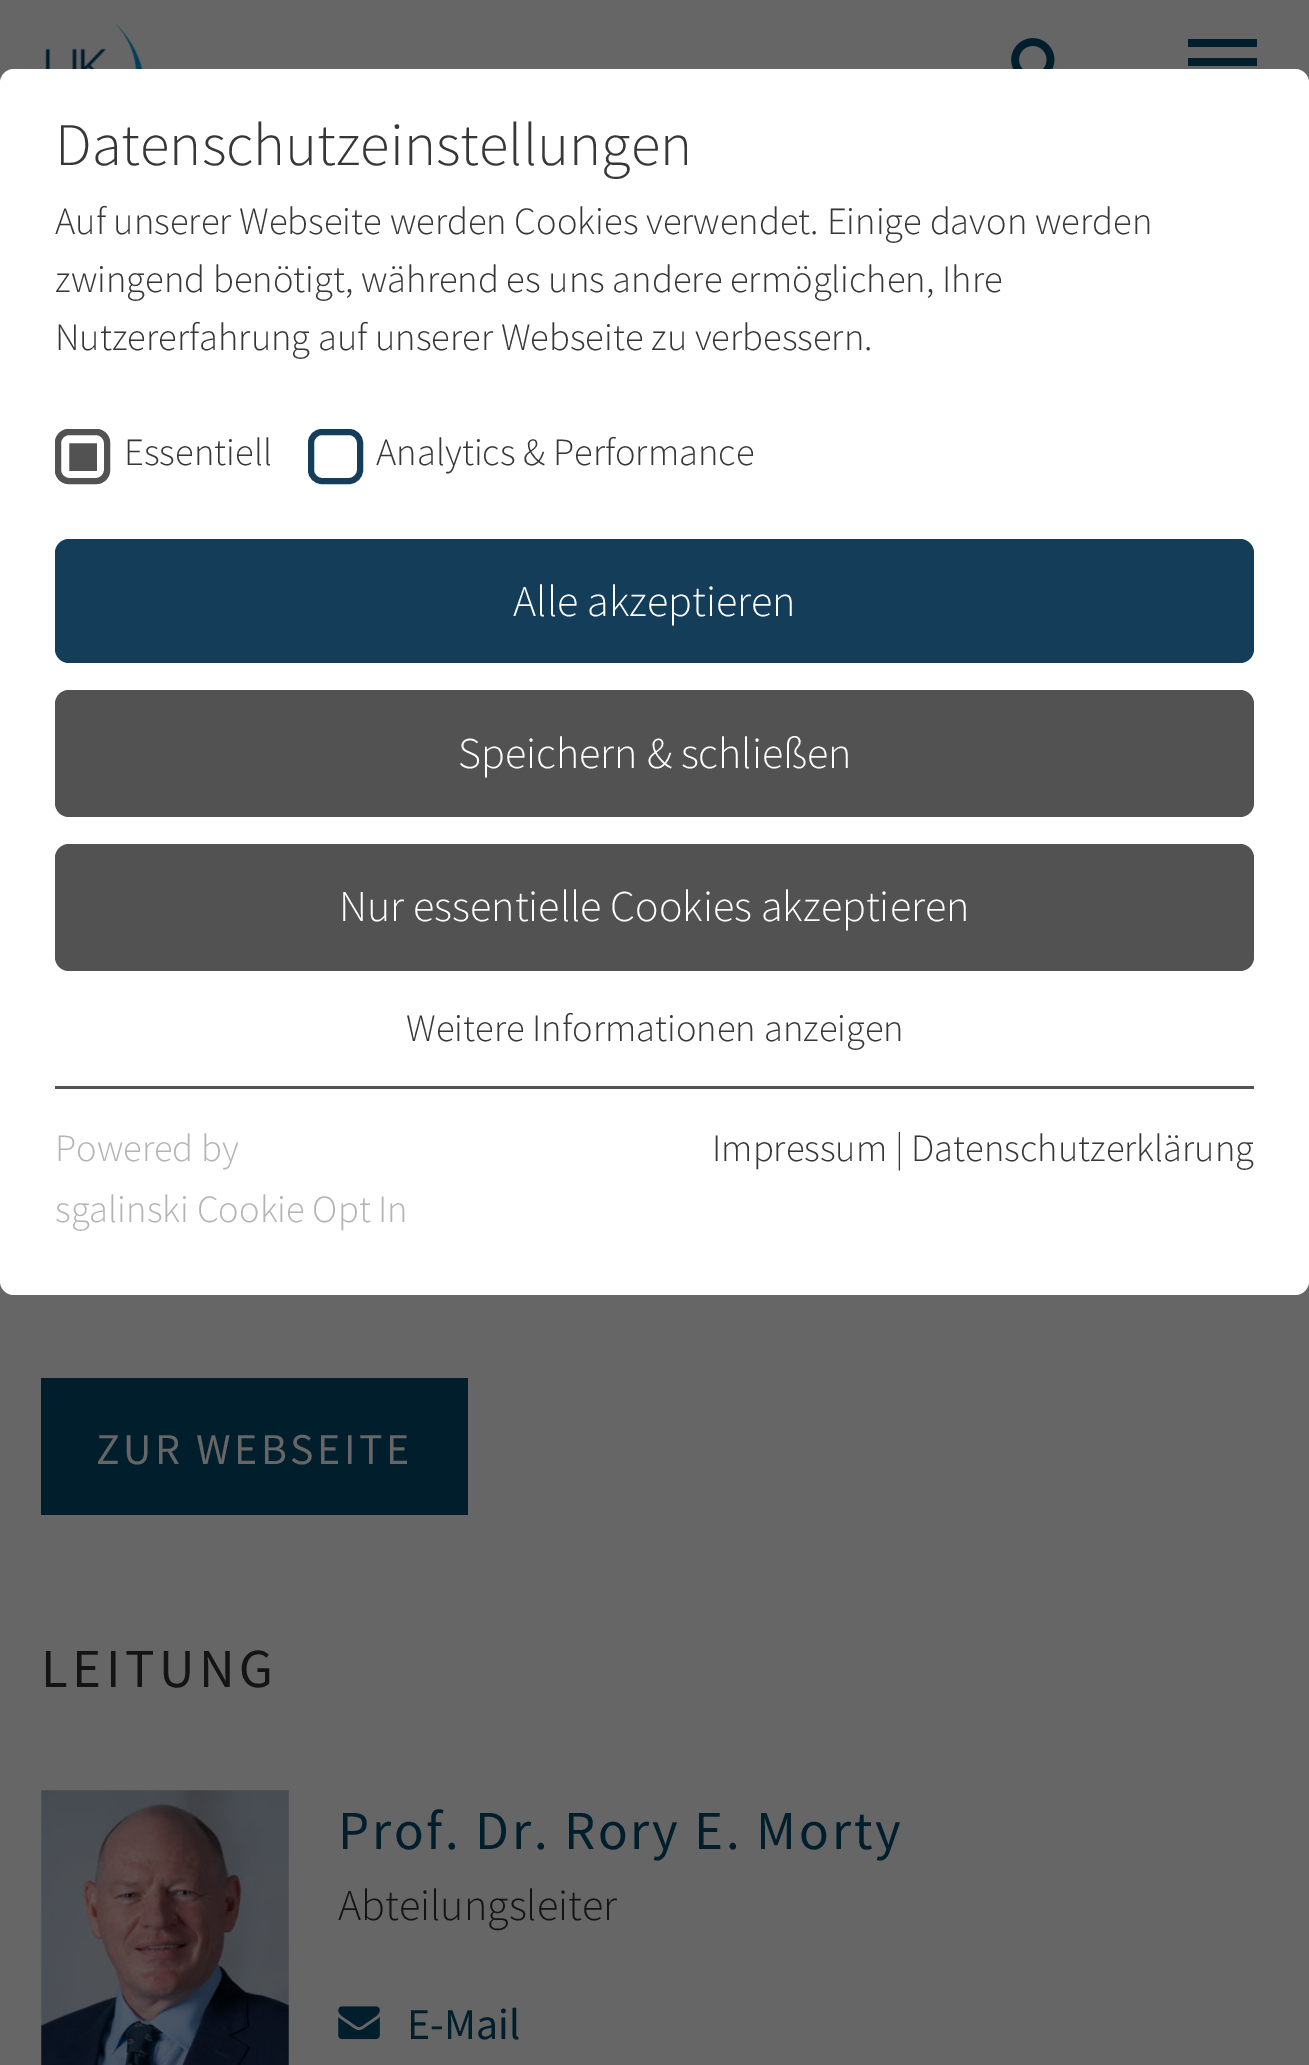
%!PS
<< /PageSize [1309 2065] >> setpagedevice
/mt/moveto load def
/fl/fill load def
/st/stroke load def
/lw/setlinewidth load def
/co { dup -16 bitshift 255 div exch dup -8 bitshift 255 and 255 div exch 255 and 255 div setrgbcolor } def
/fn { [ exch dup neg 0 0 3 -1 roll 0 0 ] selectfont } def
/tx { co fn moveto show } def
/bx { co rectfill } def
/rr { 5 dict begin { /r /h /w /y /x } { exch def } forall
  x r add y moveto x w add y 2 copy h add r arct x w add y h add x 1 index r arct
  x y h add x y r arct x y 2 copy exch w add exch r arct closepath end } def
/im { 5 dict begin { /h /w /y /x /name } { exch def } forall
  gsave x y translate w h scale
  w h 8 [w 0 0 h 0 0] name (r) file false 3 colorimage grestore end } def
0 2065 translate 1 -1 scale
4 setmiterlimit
0 0 1309 2065 16#666666 bx
16#FFFFFF co
0 69 1309 1226 14 rr fl
16#525252 co
55 429 55 55 14 rr fl
16#FFFFFF co
8 lw
65 439 36 36 4 rr st
16#525252 co
6 lw
58 432 49 49 11 rr st
16#143D59 co
311 432 49 49 11 rr st
55 539 1199 124 14 rr fl
16#525252 co
55 690 1199 127 14 rr fl
55 844 1199 127 14 rr fl
55 1086 1199 3 16#525252 bx
(media/1.raw) 45 23 98 46 im
(media/2.raw) 1011 38 44 31 im
1188 39 69 8 16#001E2C bx
1188 58 69 8 16#001E2C bx
41 1378 427 137 16#001E2C bx
(media/3.raw) 41 1790 248 275 im
(media/4.raw) 338 2006 42 34 im
(Datenschutzeinstellungen) 55 165 /SourceSansPro-Light 60.5 16#373737 tx
(Auf unserer Webseite werden Cookies verwendet. Einige davon werden) 55 234 /SourceSansPro-Light 38.5 16#373737 tx
(zwingend benötigt, während es uns andere ermöglichen, Ihre) 55 292 /SourceSansPro-Light 38.5 16#373737 tx
(Nutzererfahrung auf unserer Webseite zu verbessern.) 55 350 /SourceSansPro-Light 38.5 16#373737 tx
(Essentiell) 124 465 /SourceSansPro-Light 38.5 16#373737 tx
(Analytics & Performance) 376 465 /SourceSansPro-Light 38.5 16#373737 tx
(Alle akzeptieren) 513 616 /SourceSansPro-Light 44 16#FFFFFF tx
(Speichern & schließen) 458 768 /SourceSansPro-Light 44 16#FFFFFF tx
(Nur essentielle Cookies akzeptieren) 339 921 /SourceSansPro-Light 44 16#FFFFFF tx
(Weitere Informationen anzeigen) 406 1041 /SourceSansPro-Light 38.5 16#373737 tx
(Powered by) 55 1161 /SourceSansPro-Light 38.5 16#B4B4B4 tx
(sgalinski Cookie Opt In) 55 1222 /SourceSansPro-Light 38.5 16#B4B4B4 tx
(Impressum | Datenschutzerklärung) 712 1161 /SourceSansPro-Light 38.5 16#373737 tx
/SourceSansPro-Regular 44 fn
16#666666 co
96 1464 mt 3.5 0 (ZUR WEBSEITE) ashow
/SourceSansPro-Regular 55 fn
16#141414 co
41 1687 mt 4.5 0 (LEITUNG) ashow
16#001E2C co
338 1849 mt 2.75 0 (Prof. Dr. Rory E. Morty) ashow
(Abteilungsleiter) 338 1920 /SourceSansPro-Light 44 16#141414 tx
(E-Mail) 407 2039 /SourceSansPro-Regular 44 16#001E2C tx
showpage
